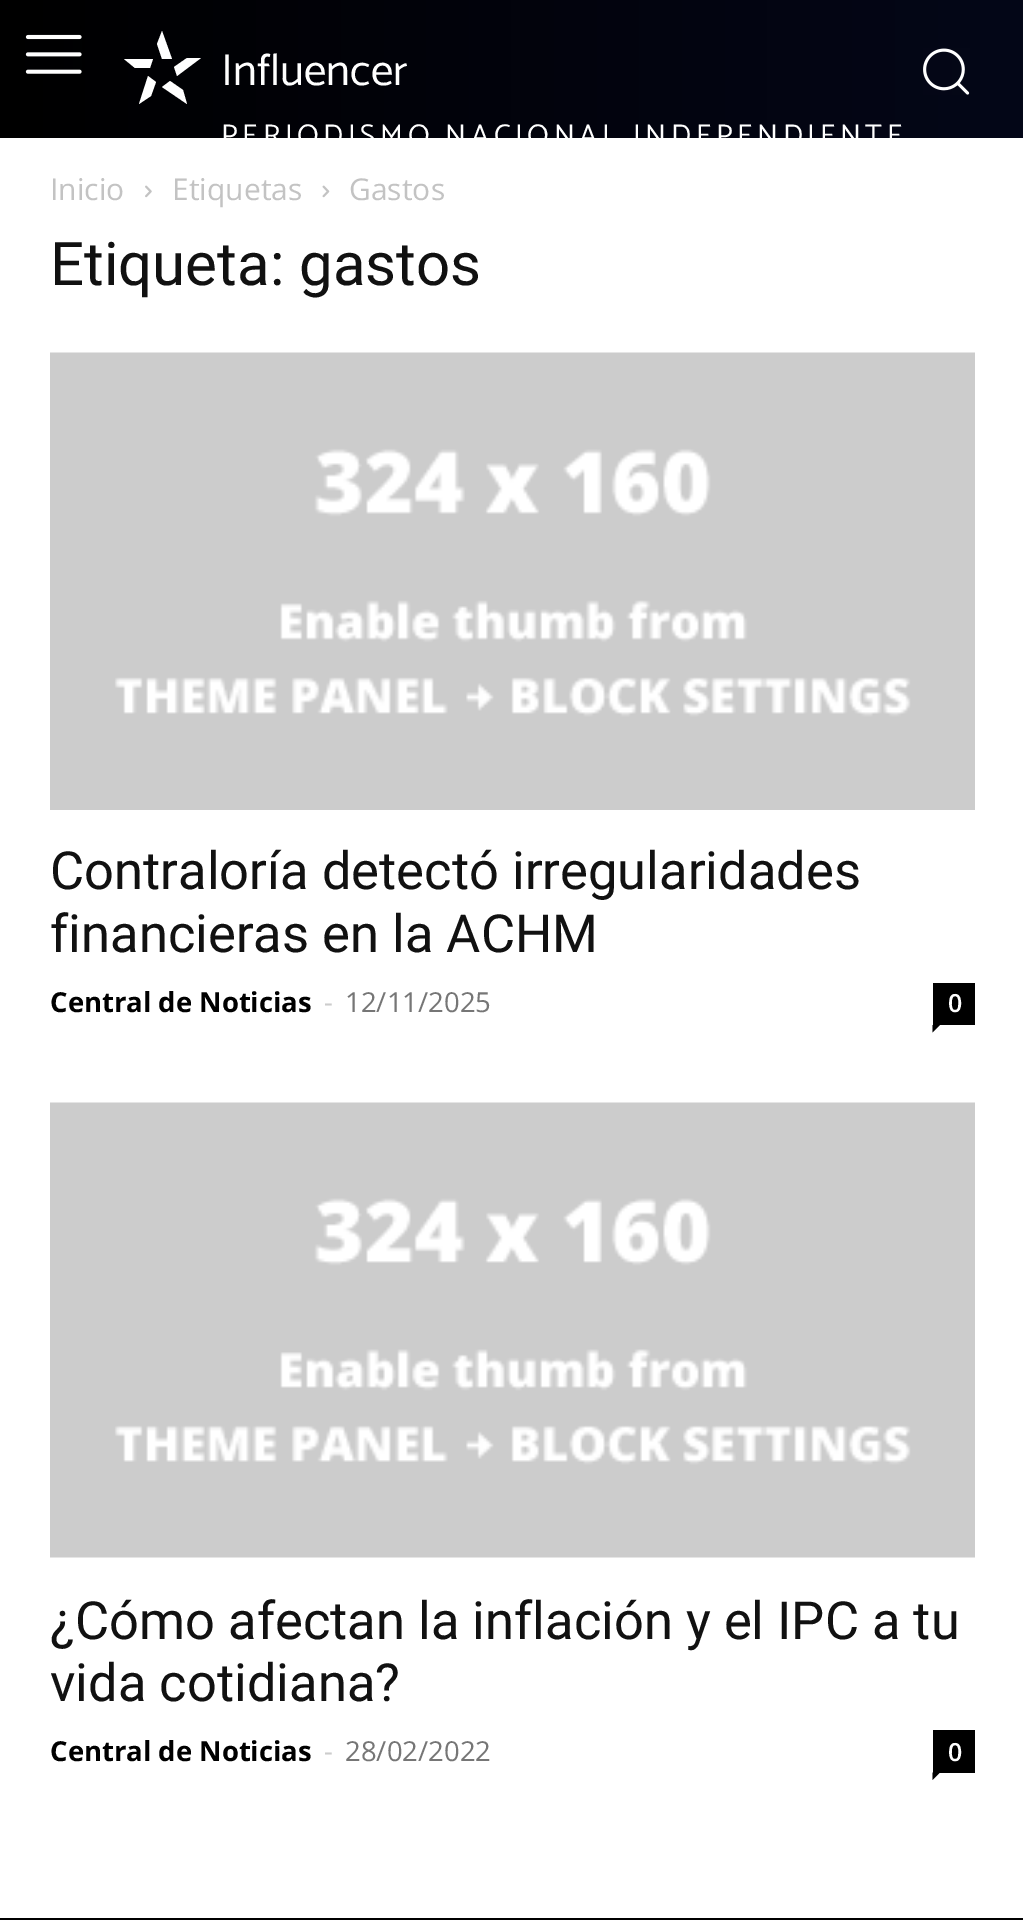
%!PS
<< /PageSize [1023 1920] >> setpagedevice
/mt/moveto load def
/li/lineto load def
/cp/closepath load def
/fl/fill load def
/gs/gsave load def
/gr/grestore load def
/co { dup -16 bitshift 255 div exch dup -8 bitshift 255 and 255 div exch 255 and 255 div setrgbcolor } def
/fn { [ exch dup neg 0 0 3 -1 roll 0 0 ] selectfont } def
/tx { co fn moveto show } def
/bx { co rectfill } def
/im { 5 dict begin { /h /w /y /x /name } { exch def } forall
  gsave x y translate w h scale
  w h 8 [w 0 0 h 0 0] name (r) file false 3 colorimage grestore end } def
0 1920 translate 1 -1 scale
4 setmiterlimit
0 0 1023 1920 16#FFFFFF bx
gs 0 0 mt 1023 0 li 1023 138 li 0 138 li cp clip newpath
<< /ShadingType 2 /ColorSpace /DeviceRGB /Coords [0 69 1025 69] /Extend [true true] /Function << /FunctionType 2 /Domain [0 1] /C0 [0 0 0] /C1 [.016 .027 .094] /N 1 >> >> shfill gr
(media/1.raw) 25 34 57 40 im
124 59 mt 135 68 li 150 68 li 153 59 li cp 139 104 mt 151 96 li 156 82 li 148 76 li cp 170 81 mt 162 87 li 187 104 li 183 90 li cp 201 58 mt 187 58 li 174 67 li 177 76 li cp 162 31 mt 157 44 li 162 59 li 172 59 li cp fl
(media/2.raw) 923 48 47 47 im
(media/3.raw) 145 185 7 13 im
(media/4.raw) 322 185 8 13 im
(media/5.raw) 50 352 925 458 im
933 983 42 42 16#000000 bx
932.5 1025 mt 940 1025 li 932.5 1032.5 li cp fl
(media/6.raw) 50 1102 925 456 im
933 1730 42 43 16#000000 bx
932.5 1772.5 mt 940 1772.5 li 932.5 1780 li cp fl
0 1918 1023 2 16#000000 bx
(Influencer) 221 85 /Catamaran-Regular 45 16#FFFFFF tx
/Catamaran-Regular 30 fn
221 145 mt 4.5 0 (PERIODISMO NACIONAL INDEPENDIENTE) ashow
(Inicio) 50 200 /OpenSans-Regular 30 16#C3C3C3 tx
(Etiquetas) 172 200 /OpenSans-Regular 30 16#C3C3C3 tx
(Gastos) 349 200 /OpenSans-Regular 30 16#C3C3C3 tx
(Etiqueta: gastos) 50 285 /Roboto-Regular 60 16#111111 tx
(Contraloría detectó irregularidades) 50 889 /Roboto-Regular 52.5 16#111111 tx
(financieras en la ACHM) 50 952 /Roboto-Regular 52.5 16#111111 tx
(Central de Noticias) 50 1012 /OpenSans-Bold 27.5 16#000000 tx
(-) 324 1012 /OpenSans-Regular 27.5 16#CCCCCC tx
(12/11/2025) 345 1012 /OpenSans-Regular 27.5 16#767676 tx
(0) 948 1012 /OpenSans-SemiBold 25 16#FFFFFF tx
(¿Cómo afectan la inflación y el IPC a tu) 50 1639 /Roboto-Regular 52.5 16#111111 tx
(vida cotidiana?) 50 1701 /Roboto-Regular 52.5 16#111111 tx
(Central de Noticias) 50 1761 /OpenSans-Bold 27.5 16#000000 tx
(-) 324 1761 /OpenSans-Regular 27.5 16#CCCCCC tx
(28/02/2022) 345 1761 /OpenSans-Regular 27.5 16#767676 tx
(0) 948 1761 /OpenSans-SemiBold 25 16#FFFFFF tx
showpage
